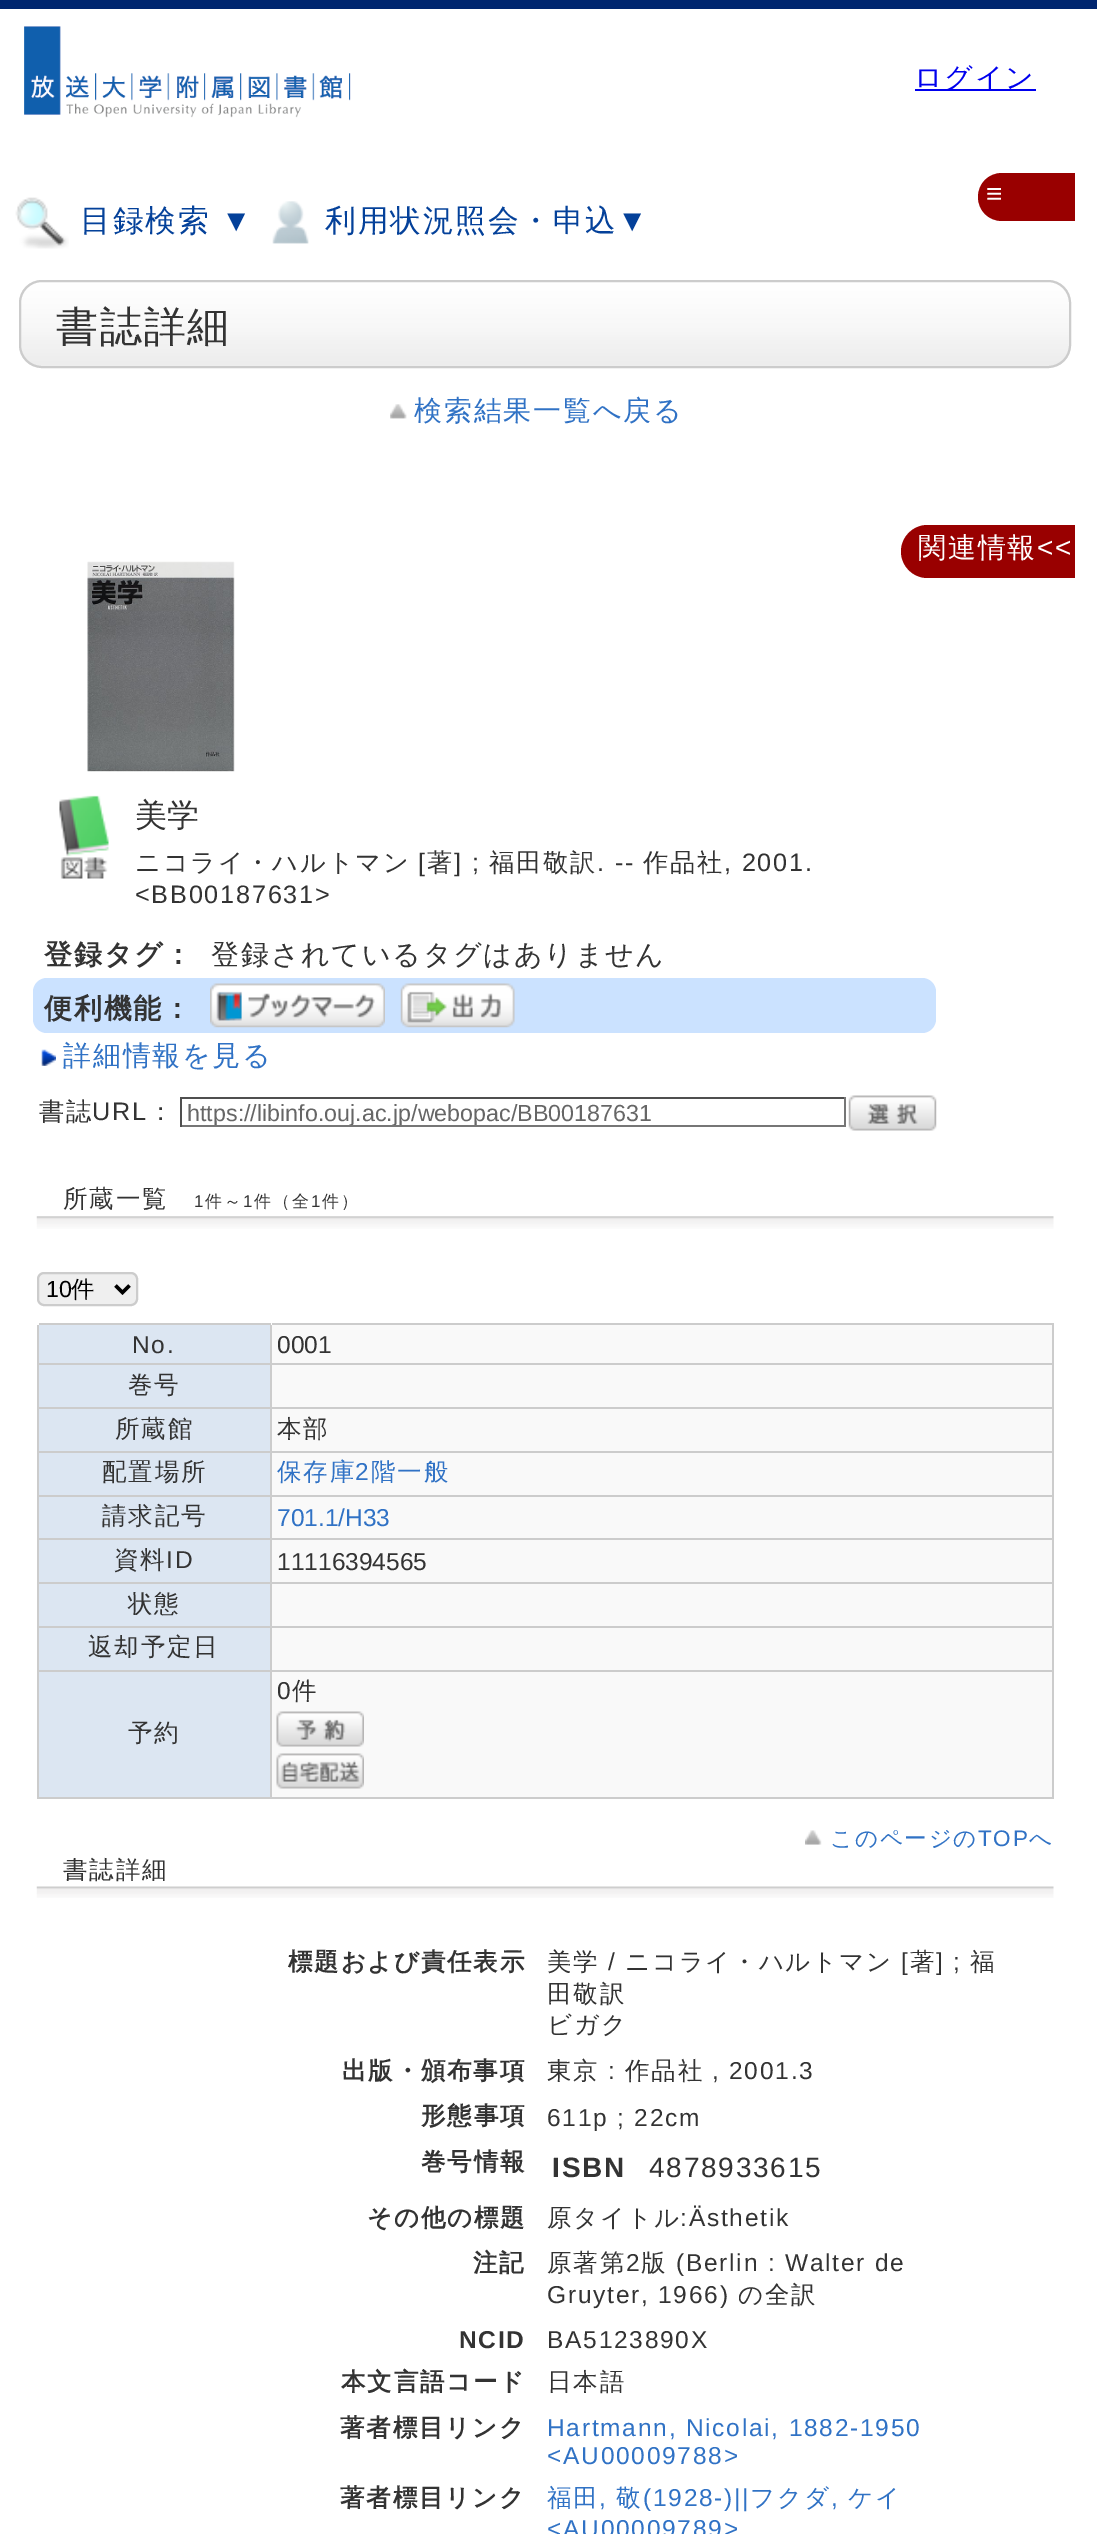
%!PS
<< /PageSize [1097 2534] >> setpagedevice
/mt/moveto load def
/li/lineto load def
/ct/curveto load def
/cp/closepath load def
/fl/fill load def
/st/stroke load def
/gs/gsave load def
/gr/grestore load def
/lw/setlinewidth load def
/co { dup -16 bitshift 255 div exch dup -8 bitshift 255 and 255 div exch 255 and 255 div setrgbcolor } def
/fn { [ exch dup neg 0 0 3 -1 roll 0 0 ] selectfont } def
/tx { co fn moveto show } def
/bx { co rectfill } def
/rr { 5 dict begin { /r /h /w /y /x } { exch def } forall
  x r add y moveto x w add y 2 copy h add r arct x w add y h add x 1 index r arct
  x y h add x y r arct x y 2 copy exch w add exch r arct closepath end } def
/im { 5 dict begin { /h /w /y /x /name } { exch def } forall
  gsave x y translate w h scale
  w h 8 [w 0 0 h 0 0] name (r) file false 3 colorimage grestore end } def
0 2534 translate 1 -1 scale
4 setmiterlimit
0 0 1097 2534 16#FFFFFF bx
0 0 1097 9 16#00266F bx
(media/1.raw) 24 26 327 92 im
915 89 121 2 16#0000EE bx
16#990000 co
1002 173 mt 1075 173 li 1075 221 li 1002 221 li 988.5 221 978 210.5 978 197 ct 978 183.5 988.5 173 1002 173 ct cp fl
(media/2.raw) 15 197 54 52 im
(media/3.raw) 272 201 37 43 im
(media/4.raw) 20 280 1051 86 im
16#CCCCCC co
2 lw
20 281 1050 86 22 rr st
(media/5.raw) 390 404 17 15 im
(media/6.raw) 87 561 148 211 im
(media/7.raw) 59 795 50 84 im
16#CBE2FF co
33 978 903 55 14 rr fl
(media/8.raw) 210 983 175 45 im
(media/9.raw) 400 983 115 45 im
(media/10.raw) 41 1049 15 17 im
180 1097 665 2 16#4F4F4F bx
844 1097 2 30 16#767676 bx
180 1125 665 2 16#767676 bx
180 1097 2 30 16#4F4F4F bx
(media/11.raw) 848 1095 89 36 im
(media/12.raw) 36 1216 1018 13 im
16#EFEFEF co
38 1273 99 32 6 rr gs fl gr
16#CCCCCC co
st
16#000000 co
3.5 lw
115.5 1285.5 mt 122.5 1292.5 li 129.5 1285.5 li st
270 1323 784 2 16#CCCCCC bx
270 1363 784 2 16#CCCCCC bx
270 1407 784 2 16#CCCCCC bx
270 1451 784 2 16#CCCCCC bx
270 1495 784 2 16#CCCCCC bx
270 1538 784 2 16#CCCCCC bx
270 1582 784 2 16#CCCCCC bx
270 1626 784 2 16#CCCCCC bx
270 1670 784 2 16#CCCCCC bx
1052 1670 2 129 16#CCCCCC bx
270 1797 784 2 16#CCCCCC bx
270 1670 2 129 16#CCCCCC bx
37 1670 234 2 16#CCCCCC bx
270 1626 2 45 16#CCCCCC bx
37 1626 234 2 16#CCCCCC bx
270 1582 2 46 16#CCCCCC bx
37 1582 234 2 16#CCCCCC bx
270 1538 2 46 16#CCCCCC bx
37 1538 234 2 16#CCCCCC bx
270 1495 2 45 16#CCCCCC bx
37 1495 234 2 16#CCCCCC bx
270 1451 2 45 16#CCCCCC bx
37 1451 234 2 16#CCCCCC bx
270 1407 2 46 16#CCCCCC bx
37 1407 234 2 16#CCCCCC bx
270 1363 2 46 16#CCCCCC bx
37 1363 234 2 16#CCCCCC bx
270 1323 2 42 16#CCCCCC bx
270 1323 2 2 16#FFFFFF bx
37 1797 234 2 16#CCCCCC bx
37 1670 2 129 16#CCCCCC bx
37 1626 2 45 16#CCCCCC bx
37 1582 2 46 16#CCCCCC bx
37 1538 2 46 16#CCCCCC bx
37 1495 2 45 16#CCCCCC bx
37 1451 2 45 16#CCCCCC bx
37 1407 2 46 16#CCCCCC bx
37 1323 2 86 16#CCCCCC bx
37 1323 234 2 16#CCCCCC bx
37 1323 2 2 16#FFFFFF bx
39 1325 231 38 16#DCE6F2 bx
272 1325 780 38 16#F9F9F9 bx
1052 1626 2 45 16#CCCCCC bx
1052 1582 2 46 16#CCCCCC bx
1052 1538 2 46 16#CCCCCC bx
1052 1495 2 45 16#CCCCCC bx
1052 1451 2 45 16#CCCCCC bx
1052 1407 2 46 16#CCCCCC bx
1052 1363 2 46 16#CCCCCC bx
1052 1323 2 42 16#CCCCCC bx
39 1365 231 42 16#DCE6F2 bx
272 1365 780 42 16#F9F9F9 bx
39 1409 231 42 16#DCE6F2 bx
272 1409 780 42 16#F9F9F9 bx
39 1453 231 42 16#DCE6F2 bx
272 1453 780 42 16#F9F9F9 bx
39 1497 231 41 16#DCE6F2 bx
272 1497 780 41 16#F9F9F9 bx
39 1540 231 42 16#DCE6F2 bx
272 1540 780 42 16#F9F9F9 bx
39 1584 231 42 16#DCE6F2 bx
272 1584 780 42 16#F9F9F9 bx
39 1628 231 42 16#DCE6F2 bx
272 1628 780 42 16#F9F9F9 bx
272 1672 780 125 16#F9F9F9 bx
(media/13.raw) 276 1711 88 36 im
(media/14.raw) 276 1753 88 36 im
39 1672 231 125 16#DCE6F2 bx
(media/15.raw) 805 1830 17 15 im
(media/16.raw) 36 1886 1018 12 im
16#990000 co
927.5 525 mt 1075 525 li 1075 578 li 927.5 578 li 913 578 901 566 901 551.5 ct 901 537 913 525 927.5 525 ct cp fl
/WenQuanYiZenHei-Medium 28 fn
16#0000EE co
914 87 mt 1.75 0 (ログイン) ashow
/LiberationSans-Regular 28 fn
16#FFFFFF co
986 203 mt 1.75 0 (≡) ashow
/WenQuanYiZenHei-Medium 30.75 fn
16#04419A co
80 231 mt 1.75 0 (目録検索) ashow
/LiberationSans-Regular 30.75 fn
221 231 mt 1.75 0 (▼) ashow
/WenQuanYiZenHei-Medium 30.75 fn
325 231 mt 1.75 0 (利用状況照会・申込) ashow
/LiberationSans-Regular 30.75 fn
617 231 mt 1.75 0 (▼) ashow
/WenQuanYiZenHei-Medium 42 fn
16#333333 co
56 341 mt 1.75 0 (書誌詳細) ashow
/WenQuanYiZenHei-Medium 28 fn
16#3072C5 co
414 420 mt 1.75 0 (検索結果一覧へ戻る) ashow
(美学) 135 826 /WenQuanYiZenHei-Medium 32 16#333333 tx
/WenQuanYiZenHei-Medium 25.25 fn
135 871 mt 1.75 0 (ニコライ・ハルトマン) ashow
/LiberationSans-Regular 25.25 fn
418 871 mt 1.75 0 ([) ashow
/WenQuanYiZenHei-Medium 25.25 fn
427 871 mt 1.75 0 (著) ashow
/LiberationSans-Regular 25.25 fn
454 871 mt 1.75 0 (] ;) ashow
/WenQuanYiZenHei-Medium 25.25 fn
489 871 mt 1.75 0 (福田敬訳) ashow
/LiberationSans-Regular 25.25 fn
597 871 mt 1.75 0 (. --) ashow
/WenQuanYiZenHei-Medium 25.25 fn
643 871 mt 1.75 0 (作品社) ashow
/LiberationSans-Regular 25.25 fn
724 871 mt 1.75 0 (, 2001.) ashow
135 903 mt 1.75 0 (<BB00187631>) ashow
/WenQuanYiZenHei-Bold 28 fn
44 964 mt 1.75 0 (登録タグ：) ashow
/WenQuanYiZenHei-Medium 28 fn
211 964 mt 1.75 0 (登録されているタグはありません) ashow
/WenQuanYiZenHei-Bold 28 fn
44 1018 mt 1.75 0 (便利機能：) ashow
/WenQuanYiZenHei-Medium 28 fn
16#3072C5 co
63 1065 mt 1.75 0 (詳細情報を見る) ashow
/WenQuanYiZenHei-Medium 25.25 fn
16#333333 co
39 1120 mt 1.75 0 (書誌) ashow
/LiberationSans-Regular 25.25 fn
92 1120 mt 1.75 0 (URL) ashow
/WenQuanYiZenHei-Medium 25.25 fn
148 1120 mt 1.75 0 (：) ashow
gs
187 1099 657 26 rectclip
(https://libinfo.ouj.ac.jp/webopac/BB00187631) 187 1121 /LiberationSans-Regular 23.3 16#666666 tx
gr
/WenQuanYiZenHei-Medium 24.5 fn
63 1207 mt 1.75 0 (所蔵一覧) ashow
/LiberationSans-Regular 17 fn
194 1207 mt 1.75 0 (1) ashow
/WenQuanYiZenHei-Medium 17 fn
205 1207 mt 1.75 0 (件～) ashow
/LiberationSans-Regular 17 fn
243 1207 mt 1.75 0 (1) ashow
/WenQuanYiZenHei-Medium 17 fn
254 1207 mt 1.75 0 (件（全) ashow
/LiberationSans-Regular 17 fn
311 1207 mt 1.75 0 (1) ashow
/WenQuanYiZenHei-Medium 17 fn
322 1207 mt 1.75 0 (件）) ashow
(10) 46 1297 /LiberationSans-Regular 23.3 16#000000 tx
(件) 71 1297 /WenQuanYiZenHei-Medium 23.3 16#000000 tx
/LiberationSans-Regular 24.5 fn
16#333333 co
132 1353 mt 1.75 0 (No.) ashow
(0001) 277 1353 /LiberationSans-Regular 24.5 16#333333 tx
/WenQuanYiZenHei-Medium 24.5 fn
128 1393 mt 1.75 0 (巻号) ashow
115 1437 mt 1.75 0 (所蔵館) ashow
277 1437 mt 1.75 0 (本部) ashow
102 1480 mt 1.75 0 (配置場所) ashow
16#3072C5 co
277 1480 mt 1.75 0 (保存庫) ashow
/LiberationSans-Regular 24.5 fn
355 1480 mt 1.75 0 (2) ashow
/WenQuanYiZenHei-Medium 24.5 fn
371 1480 mt 1.75 0 (階一般) ashow
16#333333 co
102 1524 mt 1.75 0 (請求記号) ashow
(701.1/H33) 277 1526 /LiberationSans-Regular 24.5 16#3072C5 tx
/WenQuanYiZenHei-Medium 24.5 fn
16#333333 co
114 1568 mt 1.75 0 (資料) ashow
/LiberationSans-Regular 24.5 fn
166 1568 mt 1.75 0 (ID) ashow
(11116394565) 277 1570 /LiberationSans-Regular 24.5 16#333333 tx
/WenQuanYiZenHei-Medium 24.5 fn
128 1612 mt 1.75 0 (状態) ashow
88 1655 mt 1.75 0 (返却予定日) ashow
/LiberationSans-Regular 24.5 fn
277 1699 mt 1.75 0 (0) ashow
/WenQuanYiZenHei-Medium 24.5 fn
292 1699 mt 1.75 0 (件) ashow
128 1741 mt 1.75 0 (予約) ashow
/WenQuanYiZenHei-Medium 22.5 fn
16#3072C5 co
830 1846 mt 1.75 0 (このページの) ashow
/LiberationSans-Regular 22.5 fn
978 1846 mt 1.75 0 (TOP) ashow
/WenQuanYiZenHei-Medium 22.5 fn
1029 1846 mt 1.75 0 (へ) ashow
/WenQuanYiZenHei-Medium 24.5 fn
16#333333 co
63 1878 mt 1.75 0 (書誌詳細) ashow
/WenQuanYiZenHei-Bold 24.5 fn
288 1970 mt 1.75 0 (標題および責任表示) ashow
/WenQuanYiZenHei-Medium 24.5 fn
547 1970 mt 1.75 0 (美学) ashow
/LiberationSans-Regular 24.5 fn
608 1970 mt 1.75 0 (/) ashow
/WenQuanYiZenHei-Medium 24.5 fn
625 1970 mt 1.75 0 (ニコライ・ハルトマン) ashow
/LiberationSans-Regular 24.5 fn
901 1970 mt 1.75 0 ([) ashow
/WenQuanYiZenHei-Medium 24.5 fn
910 1970 mt 1.75 0 (著) ashow
/LiberationSans-Regular 24.5 fn
936 1970 mt 1.75 0 (] ;) ashow
/WenQuanYiZenHei-Medium 24.5 fn
970 1970 mt 1.75 0 (福) ashow
547 2002 mt 1.75 0 (田敬訳) ashow
547 2033 mt 1.75 0 (ビガク) ashow
/WenQuanYiZenHei-Bold 24.5 fn
342 2079 mt 1.75 0 (出版・頒布事項) ashow
/WenQuanYiZenHei-Medium 24.5 fn
547 2079 mt 1.75 0 (東京) ashow
/LiberationSans-Regular 24.5 fn
608 2079 mt 1.75 0 (:) ashow
/WenQuanYiZenHei-Medium 24.5 fn
625 2079 mt 1.75 0 (作品社) ashow
/LiberationSans-Regular 24.5 fn
712 2079 mt 1.75 0 (, 2001.3) ashow
/WenQuanYiZenHei-Bold 24.5 fn
421 2124 mt 1.75 0 (形態事項) ashow
/LiberationSans-Regular 24.5 fn
547 2126 mt 1.75 0 (611p ; 22cm) ashow
/WenQuanYiZenHei-Bold 24.5 fn
421 2170 mt 1.75 0 (巻号情報) ashow
/LiberationSans-Bold 28 fn
552 2177 mt 1.75 0 (ISBN) ashow
/LiberationSans-Regular 28 fn
649 2177 mt 1.75 0 (4878933615) ashow
/WenQuanYiZenHei-Bold 24.5 fn
367 2226 mt 1.75 0 (その他の標題) ashow
/WenQuanYiZenHei-Medium 24.5 fn
547 2226 mt 1.75 0 (原タイトル) ashow
/LiberationSans-Regular 24.5 fn
680 2226 mt 1.75 0 (:Ästhetik) ashow
/WenQuanYiZenHei-Bold 24.5 fn
473 2271 mt 1.75 0 (注記) ashow
/WenQuanYiZenHei-Medium 24.5 fn
547 2271 mt 1.75 0 (原著第) ashow
/LiberationSans-Regular 24.5 fn
626 2271 mt 1.75 0 (2) ashow
/WenQuanYiZenHei-Medium 24.5 fn
641 2271 mt 1.75 0 (版) ashow
/LiberationSans-Regular 24.5 fn
676 2271 mt 1.75 0 (\(Berlin : Walter de) ashow
547 2303 mt 1.75 0 (Gruyter, 1966\)) ashow
/WenQuanYiZenHei-Medium 24.5 fn
738 2303 mt 1.75 0 (の全訳) ashow
/LiberationSans-Bold 24.5 fn
459 2348 mt 1.75 0 (NCID) ashow
/LiberationSans-Regular 24.5 fn
547 2348 mt 1.75 0 (BA5123890X) ashow
/WenQuanYiZenHei-Bold 24.5 fn
341 2390 mt 1.75 0 (本文言語コード) ashow
/WenQuanYiZenHei-Medium 24.5 fn
547 2390 mt 1.75 0 (日本語) ashow
/WenQuanYiZenHei-Bold 24.5 fn
340 2436 mt 1.75 0 (著者標目リンク) ashow
/LiberationSans-Regular 24.5 fn
16#3072C5 co
547 2436 mt 1.75 0 (Hartmann, Nicolai, 1882-1950) ashow
547 2464 mt 1.75 0 (<AU00009788>) ashow
/WenQuanYiZenHei-Bold 24.5 fn
16#333333 co
340 2506 mt 1.75 0 (著者標目リンク) ashow
/WenQuanYiZenHei-Medium 24.5 fn
16#3072C5 co
547 2506 mt 1.75 0 (福田) ashow
/LiberationSans-Regular 24.5 fn
599 2506 mt 1.75 0 (,) ashow
/WenQuanYiZenHei-Medium 24.5 fn
616 2506 mt 1.75 0 (敬) ashow
/LiberationSans-Regular 24.5 fn
643 2506 mt 1.75 0 (\(1928-\)||) ashow
/WenQuanYiZenHei-Medium 24.5 fn
750 2506 mt 1.75 0 (フクダ) ashow
/LiberationSans-Regular 24.5 fn
831 2506 mt 1.75 0 (,) ashow
/WenQuanYiZenHei-Medium 24.5 fn
848 2506 mt 1.75 0 (ケイ) ashow
/LiberationSans-Regular 24.5 fn
547 2537 mt 1.75 0 (<AU00009789>) ashow
/WenQuanYiZenHei-Medium 28 fn
16#FFFFFF co
918 557 mt 1.75 0 (関連情報) ashow
/LiberationSans-Regular 28 fn
1037 557 mt 1.75 0 (<<) ashow
showpage
